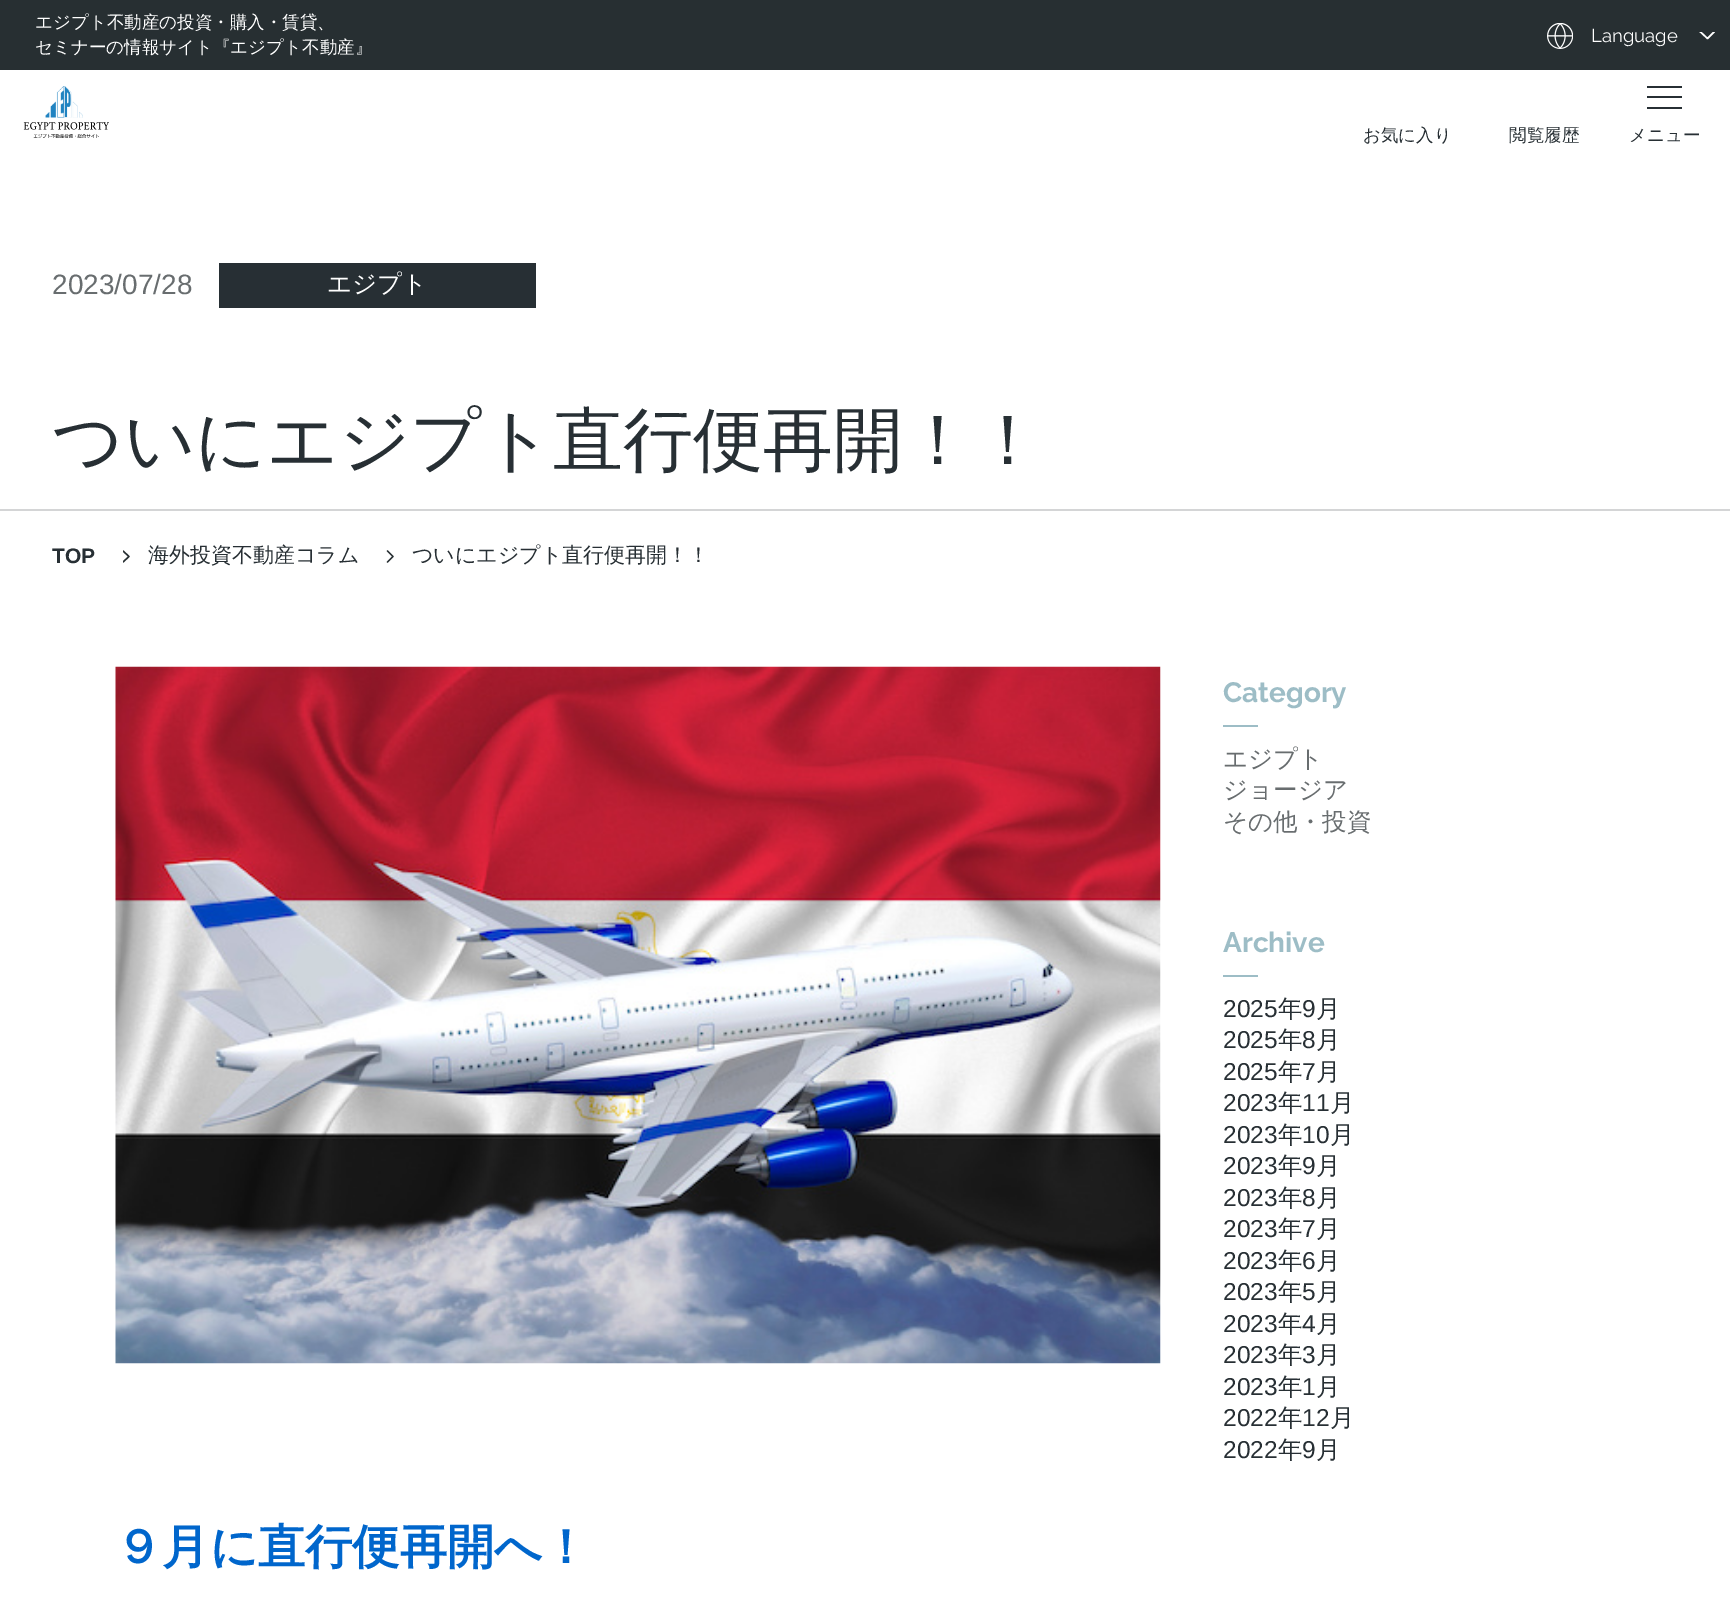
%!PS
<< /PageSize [1730 1614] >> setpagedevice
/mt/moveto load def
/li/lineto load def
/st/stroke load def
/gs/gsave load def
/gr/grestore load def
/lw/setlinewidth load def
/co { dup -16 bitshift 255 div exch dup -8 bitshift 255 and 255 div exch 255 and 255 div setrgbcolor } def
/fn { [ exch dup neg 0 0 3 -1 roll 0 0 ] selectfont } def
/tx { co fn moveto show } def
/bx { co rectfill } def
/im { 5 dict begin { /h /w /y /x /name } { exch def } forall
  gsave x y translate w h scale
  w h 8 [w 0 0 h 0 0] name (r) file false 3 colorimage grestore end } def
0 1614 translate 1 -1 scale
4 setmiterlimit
0 0 1730 1614 16#FFFFFF bx
0 0 1730 70 16#272F32 bx
(media/1.raw) 1547 23 26 26 im
gs
1699 32 16 8 rectclip
16#FFFFFF co
1.5 lw
1 setlinecap
1 setlinejoin
1700 31.5 mt 1707.5 38.5 li 1714.5 31.5 li st
gr
(media/2.raw) 23 86 86 52 im
1647 86 35 2 16#272F34 bx
1647 96 35 2 16#272F34 bx
1647 107 35 2 16#272F34 bx
0 509 1730 2 16#D4D5D6 bx
219 263 317 45 16#272F34 bx
gs
123 550 7 14 rectclip
16#272F32 co
1.4 lw
1 setlinecap
1 setlinejoin
123 562 mt 129 556.5 li 123 551 li st
gr
16#272F32 co
1.4 lw
1 setlinecap
1 setlinejoin
387.5 562 mt 393 556.5 li 387.5 551 li st
1223 725 35 2 16#9DBDC6 bx
1223 975 35 2 16#9DBDC6 bx
(media/3.raw) 115 666 1046 698 im
(エジプト不動産の投資・購入・賃貸、) 35 28 /WenQuanYiZenHei-Medium 17.5 16#FFFFFF tx
(セミナーの情報サイト『エジプト不動産』) 35 53 /WenQuanYiZenHei-Medium 17.5 16#FFFFFF tx
(Language) 1591 42 /Raleway-Regular 18.5 16#FFFFFF tx
(お気に入り) 1363 141 /WenQuanYiZenHei-Medium 17.5 16#272F34 tx
(閲覧履歴) 1509 141 /WenQuanYiZenHei-Medium 17.5 16#272F34 tx
(メニュー) 1629 141 /WenQuanYiZenHei-Medium 17.5 16#272F34 tx
(2023/07/28) 52 294 /LiberationSans-Regular 28 16#686D6F tx
(エジプト) 327 292 /WenQuanYiZenHei-Medium 24.5 16#FFFFFF tx
(ついにエジプト直行便再開！！) 52 464 /WenQuanYiZenHei-Medium 70 16#272F34 tx
(TOP) 52 563 /LiberationSans-Bold 21 16#272F34 tx
(海外投資不動産コラム) 148 562 /WenQuanYiZenHei-Medium 21 16#272F34 tx
(ついにエジプト直行便再開！！) 412 562 /WenQuanYiZenHei-Medium 21 16#272F34 tx
(Category) 1223 702 /Raleway-Bold 28 16#9DBDC6 tx
(エジプト) 1223 767 /WenQuanYiZenHei-Medium 24.5 16#686D6F tx
(ジョージア) 1223 798 /WenQuanYiZenHei-Medium 24.5 16#686D6F tx
(その他・投資) 1223 830 /WenQuanYiZenHei-Medium 24.5 16#686D6F tx
(Archive) 1223 952 /Raleway-Bold 28 16#9DBDC6 tx
(2025) 1223 1017 /LiberationSans-Regular 24.5 16#272F34 tx
(年) 1278 1017 /WenQuanYiZenHei-Medium 24.5 16#272F34 tx
(9) 1302 1017 /LiberationSans-Regular 24.5 16#272F34 tx
(月) 1316 1017 /WenQuanYiZenHei-Medium 24.5 16#272F34 tx
(2025) 1223 1048 /LiberationSans-Regular 24.5 16#272F34 tx
(年) 1278 1048 /WenQuanYiZenHei-Medium 24.5 16#272F34 tx
(8) 1302 1048 /LiberationSans-Regular 24.5 16#272F34 tx
(月) 1316 1048 /WenQuanYiZenHei-Medium 24.5 16#272F34 tx
(2025) 1223 1080 /LiberationSans-Regular 24.5 16#272F34 tx
(年) 1278 1080 /WenQuanYiZenHei-Medium 24.5 16#272F34 tx
(7) 1302 1080 /LiberationSans-Regular 24.5 16#272F34 tx
(月) 1316 1080 /WenQuanYiZenHei-Medium 24.5 16#272F34 tx
(2023) 1223 1111 /LiberationSans-Regular 24.5 16#272F34 tx
(年) 1278 1111 /WenQuanYiZenHei-Medium 24.5 16#272F34 tx
(11) 1302 1111 /LiberationSans-Regular 24.5 16#272F34 tx
(月) 1330 1111 /WenQuanYiZenHei-Medium 24.5 16#272F34 tx
(2023) 1223 1143 /LiberationSans-Regular 24.5 16#272F34 tx
(年) 1278 1143 /WenQuanYiZenHei-Medium 24.5 16#272F34 tx
(10) 1302 1143 /LiberationSans-Regular 24.5 16#272F34 tx
(月) 1330 1143 /WenQuanYiZenHei-Medium 24.5 16#272F34 tx
(2023) 1223 1174 /LiberationSans-Regular 24.5 16#272F34 tx
(年) 1278 1174 /WenQuanYiZenHei-Medium 24.5 16#272F34 tx
(9) 1302 1174 /LiberationSans-Regular 24.5 16#272F34 tx
(月) 1316 1174 /WenQuanYiZenHei-Medium 24.5 16#272F34 tx
(2023) 1223 1206 /LiberationSans-Regular 24.5 16#272F34 tx
(年) 1278 1206 /WenQuanYiZenHei-Medium 24.5 16#272F34 tx
(8) 1302 1206 /LiberationSans-Regular 24.5 16#272F34 tx
(月) 1316 1206 /WenQuanYiZenHei-Medium 24.5 16#272F34 tx
(2023) 1223 1237 /LiberationSans-Regular 24.5 16#272F34 tx
(年) 1278 1237 /WenQuanYiZenHei-Medium 24.5 16#272F34 tx
(7) 1302 1237 /LiberationSans-Regular 24.5 16#272F34 tx
(月) 1316 1237 /WenQuanYiZenHei-Medium 24.5 16#272F34 tx
(2023) 1223 1269 /LiberationSans-Regular 24.5 16#272F34 tx
(年) 1278 1269 /WenQuanYiZenHei-Medium 24.5 16#272F34 tx
(6) 1302 1269 /LiberationSans-Regular 24.5 16#272F34 tx
(月) 1316 1269 /WenQuanYiZenHei-Medium 24.5 16#272F34 tx
(2023) 1223 1300 /LiberationSans-Regular 24.5 16#272F34 tx
(年) 1278 1300 /WenQuanYiZenHei-Medium 24.5 16#272F34 tx
(5) 1302 1300 /LiberationSans-Regular 24.5 16#272F34 tx
(月) 1316 1300 /WenQuanYiZenHei-Medium 24.5 16#272F34 tx
(2023) 1223 1332 /LiberationSans-Regular 24.5 16#272F34 tx
(年) 1278 1332 /WenQuanYiZenHei-Medium 24.5 16#272F34 tx
(4) 1302 1332 /LiberationSans-Regular 24.5 16#272F34 tx
(月) 1316 1332 /WenQuanYiZenHei-Medium 24.5 16#272F34 tx
(2023) 1223 1363 /LiberationSans-Regular 24.5 16#272F34 tx
(年) 1278 1363 /WenQuanYiZenHei-Medium 24.5 16#272F34 tx
(3) 1302 1363 /LiberationSans-Regular 24.5 16#272F34 tx
(月) 1316 1363 /WenQuanYiZenHei-Medium 24.5 16#272F34 tx
(2023) 1223 1395 /LiberationSans-Regular 24.5 16#272F34 tx
(年) 1278 1395 /WenQuanYiZenHei-Medium 24.5 16#272F34 tx
(1) 1302 1395 /LiberationSans-Regular 24.5 16#272F34 tx
(月) 1316 1395 /WenQuanYiZenHei-Medium 24.5 16#272F34 tx
(2022) 1223 1426 /LiberationSans-Regular 24.5 16#272F34 tx
(年) 1278 1426 /WenQuanYiZenHei-Medium 24.5 16#272F34 tx
(12) 1302 1426 /LiberationSans-Regular 24.5 16#272F34 tx
(月) 1330 1426 /WenQuanYiZenHei-Medium 24.5 16#272F34 tx
(2022) 1223 1458 /LiberationSans-Regular 24.5 16#272F34 tx
(年) 1278 1458 /WenQuanYiZenHei-Medium 24.5 16#272F34 tx
(9) 1302 1458 /LiberationSans-Regular 24.5 16#272F34 tx
(月) 1316 1458 /WenQuanYiZenHei-Medium 24.5 16#272F34 tx
(９月に直行便再開へ！) 115 1563 /WenQuanYiZenHei-Bold 47.25 16#0066CC tx
showpage
